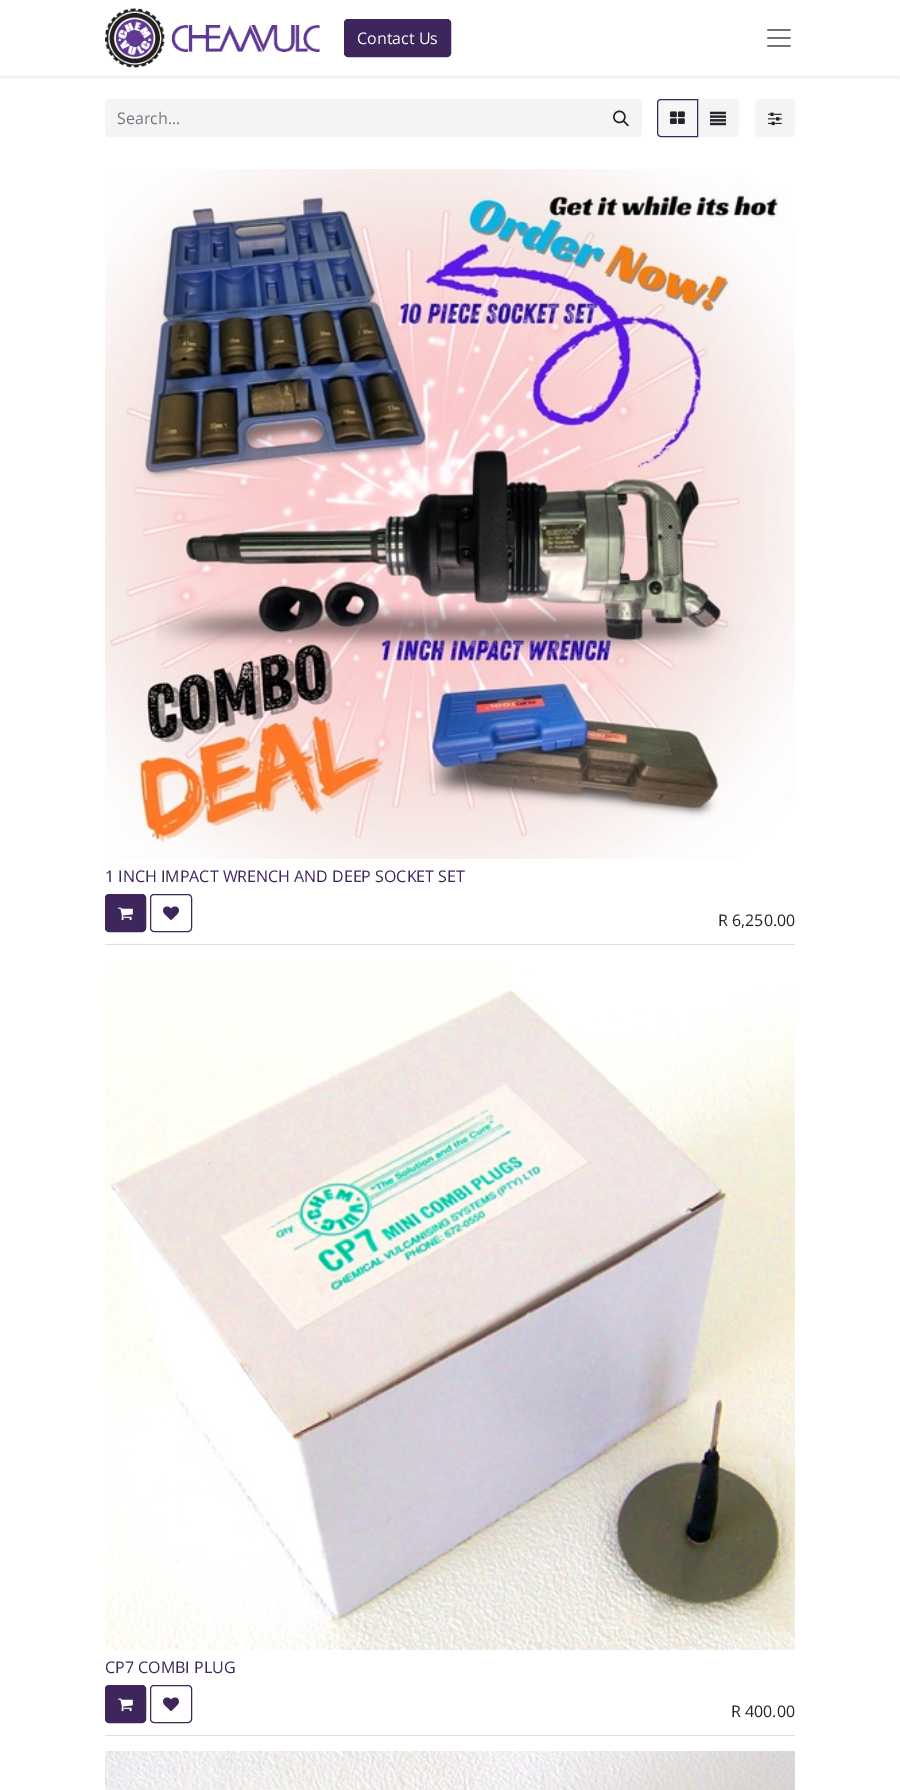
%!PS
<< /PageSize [900 1790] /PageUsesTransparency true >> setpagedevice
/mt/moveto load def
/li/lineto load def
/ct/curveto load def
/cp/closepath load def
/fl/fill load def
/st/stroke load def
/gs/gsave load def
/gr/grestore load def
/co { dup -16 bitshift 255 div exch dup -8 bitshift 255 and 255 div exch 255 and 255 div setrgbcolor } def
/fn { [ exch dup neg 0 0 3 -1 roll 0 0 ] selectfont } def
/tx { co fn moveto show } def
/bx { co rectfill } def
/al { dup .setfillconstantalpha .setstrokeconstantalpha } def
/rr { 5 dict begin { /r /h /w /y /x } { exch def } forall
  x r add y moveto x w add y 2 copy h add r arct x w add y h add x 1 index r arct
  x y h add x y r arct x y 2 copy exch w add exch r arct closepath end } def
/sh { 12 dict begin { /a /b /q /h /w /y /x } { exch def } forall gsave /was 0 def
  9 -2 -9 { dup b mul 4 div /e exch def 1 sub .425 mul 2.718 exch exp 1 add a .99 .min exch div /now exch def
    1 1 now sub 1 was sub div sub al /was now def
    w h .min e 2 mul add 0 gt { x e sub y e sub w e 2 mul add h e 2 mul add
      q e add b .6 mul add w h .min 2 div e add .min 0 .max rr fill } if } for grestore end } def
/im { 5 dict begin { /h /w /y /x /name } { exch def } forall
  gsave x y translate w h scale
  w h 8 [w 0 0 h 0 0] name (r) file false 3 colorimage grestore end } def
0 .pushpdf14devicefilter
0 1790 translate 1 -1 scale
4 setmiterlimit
0 0 900 1790 16#FFFFFF bx
gs
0 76 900 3 rectclip
16#000000 co
0 2 900 76 0 2 .07 sh
gr
(media/1.raw) 105 8 215 60 im
16#3E265D co
344.5 19.5 106 37 3.5 rr gs fl gr
st
(media/2.raw) 767 29 24 18 im
16#F4F4F4 co
109 99 mt 601 99 li 601 137 li 109 137 li 107 137 105 135 105 133 ct 105 103 li 105 101 107 99 109 99 ct cp fl
600 99 mt 638 99 li 640 99 642 101 642 103 ct 642 133 li 642 135 640 137 638 137 ct 600 137 li cp fl
(media/3.raw) 613 110 16 17 im
697 99 mt 735 99 li 737 99 739 101 739 103 ct 739 133 li 739 135 737 137 735 137 ct 697 137 li cp fl
16#F6F6F6 co
661 99.5 mt 697.5 99.5 li 697.5 136.5 li 661 136.5 li 659 136.5 657.5 135 657.5 133 ct 657.5 103 li 657.5 101 659 99.5 661 99.5 ct cp gs fl gr
16#3E265D co
st
(media/4.raw) 670 111 15 13 im
(media/5.raw) 710 111 16 15 im
16#F4F4F4 co
755 99 40 38 4 rr fl
(media/6.raw) 768 112 14 14 im
105 944 690 1 16#DFDFDF bx
(media/7.raw) 105 169 690 690 im
16#3E265D co
105.5 894.5 40 37 3.5 rr gs fl gr
st
(media/8.raw) 118 907 15 14 im
150.5 894.5 41 37 3.5 rr st
(media/9.raw) 163 906 16 15 im
105 1735 690 1 16#DFDFDF bx
(media/10.raw) 105 960 690 690 im
16#3E265D co
105.5 1685.5 40 37 3.5 rr gs fl gr
st
(media/8.raw) 118 1698 15 14 im
150.5 1685.5 41 37 3.5 rr st
(media/9.raw) 163 1697 16 15 im
(media/11.raw) 105 1751 690 39 im
(Contact Us) 357 44 /OpenSans-Regular 16 16#FFFFFF tx
(Search...) 117 124 /OpenSans-Regular 16 16#6C757D tx
(1 INCH IMPACT WRENCH AND DEEP SOCKET SET) 105 882 /OpenSans-Regular 16 16#3E265D tx
(R 6,250.00) 718 926 /OpenSans-Regular 16 16#212529 tx
(CP7 COMBI PLUG) 105 1673 /OpenSans-Regular 16 16#3E265D tx
(R 400.00) 731 1717 /OpenSans-Regular 16 16#212529 tx
.poppdf14devicefilter showpage
